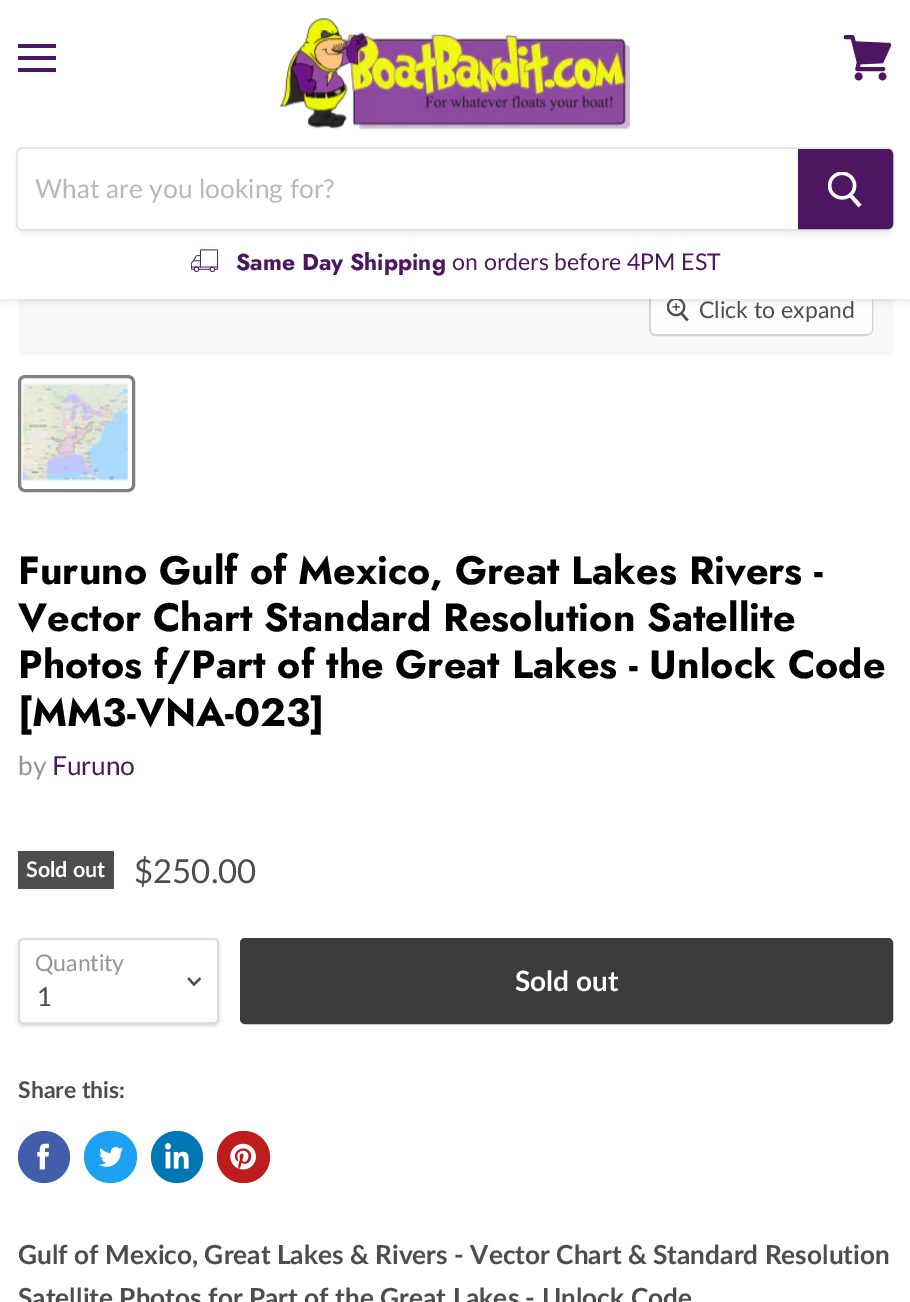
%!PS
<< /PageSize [910 1302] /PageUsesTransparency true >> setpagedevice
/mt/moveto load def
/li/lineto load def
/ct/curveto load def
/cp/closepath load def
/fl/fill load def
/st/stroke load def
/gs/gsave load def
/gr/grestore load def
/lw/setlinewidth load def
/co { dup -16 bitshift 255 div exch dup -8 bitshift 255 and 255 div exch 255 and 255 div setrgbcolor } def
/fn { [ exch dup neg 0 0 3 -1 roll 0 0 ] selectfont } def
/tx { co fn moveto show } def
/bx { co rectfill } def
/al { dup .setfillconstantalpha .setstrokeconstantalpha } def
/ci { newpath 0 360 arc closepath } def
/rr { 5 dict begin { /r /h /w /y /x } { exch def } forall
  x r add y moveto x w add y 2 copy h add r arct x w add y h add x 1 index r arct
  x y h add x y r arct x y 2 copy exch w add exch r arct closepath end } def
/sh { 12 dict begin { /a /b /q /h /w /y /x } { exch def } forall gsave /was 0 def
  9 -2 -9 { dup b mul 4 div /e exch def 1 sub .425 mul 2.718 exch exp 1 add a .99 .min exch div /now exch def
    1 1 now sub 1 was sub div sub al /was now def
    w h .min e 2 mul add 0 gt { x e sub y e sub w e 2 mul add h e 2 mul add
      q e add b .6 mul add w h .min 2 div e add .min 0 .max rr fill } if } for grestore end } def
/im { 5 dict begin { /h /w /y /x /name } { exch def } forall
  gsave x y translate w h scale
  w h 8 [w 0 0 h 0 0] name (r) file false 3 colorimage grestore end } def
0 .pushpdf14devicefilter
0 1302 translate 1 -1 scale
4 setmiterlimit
0 0 910 1302 16#FFFFFF bx
18 299 875 56 16#F8F8F8 bx
16#D3D3D3 co
2 lw
650 286 222 49 6 rr st
0.9 al
16#FFFFFF co
651 287 221 47 5 rr fl
1 al
(media/5.raw) 667 299 22 23 im
16#808080 co
0 2 910 299 0 3.5 .25 sh
0 0 910 299 16#FFFFFF bx
18 44 38 4 16#4D1660 bx
18 56 38 4 16#4D1660 bx
18 68 38 4 16#4D1660 bx
(media/1.raw) 844 35 48 46 im
(media/2.raw) 280 18 350 112 im
gs
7 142 mt 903 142 li 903 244 li 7 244 li cp 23 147 mt 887 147 li 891 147 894 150 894 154 ct 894 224 li 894 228 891 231 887 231 ct 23 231 li 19 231 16 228 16 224 ct 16 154 li 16 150 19 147 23 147 ct cp eoclip newpath
16#808080 co
16 151 878 84 7 2.5 .11 sh
gr
0.2 al
16#808080 co
17 148 876 82 6 rr st
1 al
16#FFFFFF co
23 149 mt 798 149 li 798 229 li 23 229 li 20 229 18 227 18 224 ct 18 154 li 18 151 20 149 23 149 ct cp fl
16#4D1660 co
799 150 mt 888 150 li 890 150 892 152 892 154 ct 892 224 li 892 226 890 228 888 228 ct 799 228 li cp gs fl gr
st
(media/3.raw) 828 172 34 36 im
(media/4.raw) 191 249 28 24 im
16#818181 co
3 lw
19.5 376.5 114 114 5.5 rr st
(media/6.raw) 22 380 106 102 im
18 851 96 38 16#4D4D4D bx
16#000000 co
18 940 201 86 5 2 .15 sh
16#FFFFFF co
19 939 199 84 4 rr gs fl gr
16#DDDDDD co
2 lw
st
16#4D4D4D co
2.2 lw
2 setlinecap
194 984.5 mt 199.5 979 li 194 984.5 mt 189 979 li st
16#3B3B3B co
241 939 651 84 4 rr gs fl gr
2 lw
0 setlinecap
st
16#425DAB co
44 1157 26 ci fl
(media/7.raw) 37 1143 12 27 im
16#1DA1F2 co
84 1131 53 52 26 rr fl
(media/8.raw) 99 1147 25 20 im
16#0077B5 co
177 1157 26 ci fl
(media/9.raw) 164 1143 25 26 im
16#BD1C1C co
217 1131 53 52 26 rr fl
(media/10.raw) 230 1143 26 27 im
(What are you looking for?) 35 198 /Lato-Regular 26.25 16#B8B8B8 tx
(Same Day Shipping) 236 270 /Jost-Bold 23 16#4D1660 tx
(on orders before 4PM EST) 452 270 /Lato-Regular 23 16#4D1660 tx
(Click to expand) 699 318 /Lato-Regular 23 16#4D4D4D tx
(Furuno Gulf of Mexico, Great Lakes Rivers -) 18 584 /Jost-Bold 39.4 16#000000 tx
(Vector Chart Standard Resolution Satellite) 18 631 /Jost-Bold 39.4 16#000000 tx
(Photos f/Part of the Great Lakes - Unlock Code) 18 678 /Jost-Bold 39.4 16#000000 tx
([MM3-VNA-023]) 18 726 /Jost-Bold 39.4 16#000000 tx
(by) 18 775 /Lato-Regular 26.25 16#949494 tx
(Furuno) 52 775 /Lato-Regular 26.25 16#4D1660 tx
(Sold out) 26 877 /Lato-Bold 21.5 16#FFFFFF tx
($250.00) 134 883 /Lato-Regular 33 16#4D4D4D tx
(Quantity) 35 971 /Lato-Regular 23 16#949494 tx
(1) 37 1006 /Lato-Regular 26.25 16#4D4D4D tx
(Sold out) 515 991 /Lato-Bold 28 16#FFFFFF tx
(Share this:) 18 1098 /Lato-Bold 23 16#4D4D4D tx
(Gulf of Mexico, Great Lakes & Rivers - Vector Chart & Standard Resolution) 18 1264 /Lato-Bold 26.25 16#4D4D4D tx
(Satellite Photos for Part of the Great Lakes - Unlock Code) 18 1307 /Lato-Bold 26.25 16#4D4D4D tx
.poppdf14devicefilter showpage
